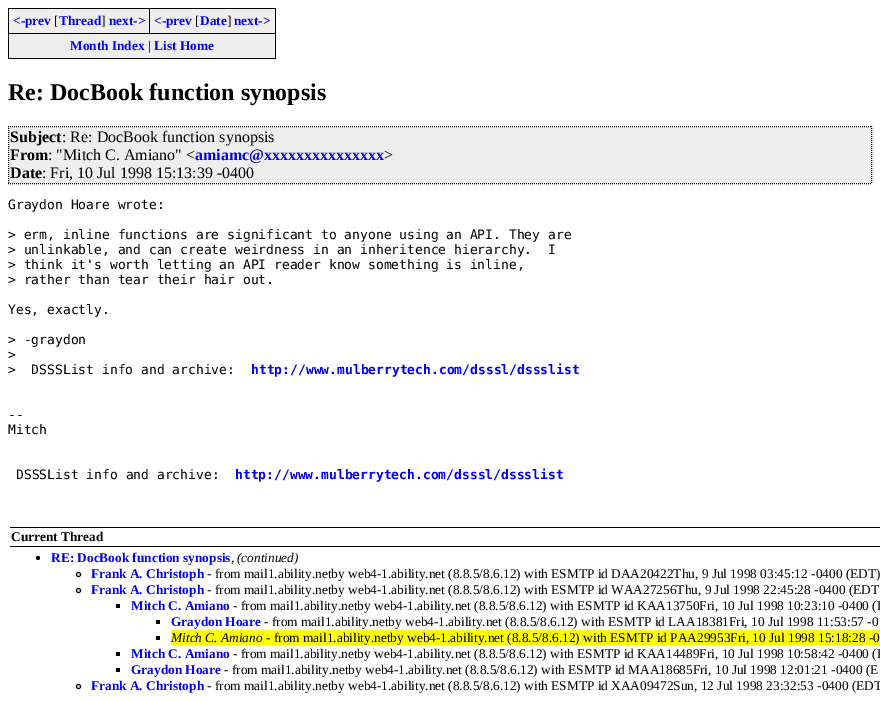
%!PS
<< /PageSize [880 701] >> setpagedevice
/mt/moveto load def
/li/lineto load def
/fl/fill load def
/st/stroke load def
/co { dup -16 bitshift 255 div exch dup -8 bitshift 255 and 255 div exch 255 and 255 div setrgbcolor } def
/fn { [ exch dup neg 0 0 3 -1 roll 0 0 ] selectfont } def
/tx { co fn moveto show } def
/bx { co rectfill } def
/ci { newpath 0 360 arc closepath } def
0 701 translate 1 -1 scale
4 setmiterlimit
0 0 880 701 16#FFFFFF bx
9 9 266 49 16#EEEEEE bx
8 8 268 1 16#000000 bx
275 8 1 51 16#000000 bx
8 58 268 1 16#000000 bx
8 8 1 51 16#000000 bx
8 33 268 1 16#000000 bx
149 8 1 26 16#000000 bx
8 126 864 58 16#EEEEEE bx
16#000000 co
[1 1] 0 setdash
8 126.5 mt 872 126.5 li st
871.5 126 mt 871.5 184 li st
8 183.5 mt 872 183.5 li st
8.5 126 mt 8.5 184 li st
10 527 870 1 16#000000 bx
10 546 870 1 16#000000 bx
38 558 2 ci fl
[] 0 setdash
78.5 574.5 2 ci st
78.5 590.5 2 ci st
116 604 4 4 16#000000 bx
156 620 4 4 16#000000 bx
156 636 4 4 16#000000 bx
171 630 709 15 16#FFFF00 bx
116 652 4 4 16#000000 bx
116 668 4 4 16#000000 bx
78.5 686.5 2 ci st
(<-prev) 13 25 /LiberationSerif-Bold 13.33 16#0000EE tx
([) 54 25 /LiberationSerif-Regular 13.33 16#000000 tx
(Thread) 59 25 /LiberationSerif-Bold 13.33 16#0000EE tx
(]) 101 25 /LiberationSerif-Regular 13.33 16#000000 tx
(next->) 109 25 /LiberationSerif-Bold 13.33 16#0000EE tx
(<-prev) 154 25 /LiberationSerif-Bold 13.33 16#0000EE tx
([) 195 25 /LiberationSerif-Regular 13.33 16#000000 tx
(Date) 200 25 /LiberationSerif-Bold 13.33 16#0000EE tx
(]) 227 25 /LiberationSerif-Regular 13.33 16#000000 tx
(next->) 234 25 /LiberationSerif-Bold 13.33 16#0000EE tx
(Month Index) 70 50 /LiberationSerif-Bold 13.33 16#0000EE tx
(|) 148 50 /LiberationSerif-Regular 13.33 16#000000 tx
(List Home) 154 50 /LiberationSerif-Bold 13.33 16#0000EE tx
(Re: DocBook function synopsis) 8 100 /LiberationSerif-Bold 24 16#000000 tx
(Subject) 10 142 /LiberationSerif-Bold 16 16#000000 tx
(: Re: DocBook function synopsis) 62 142 /LiberationSerif-Regular 16 16#000000 tx
(From) 10 160 /LiberationSerif-Bold 16 16#000000 tx
(: "Mitch C. Amiano" <) 48 160 /LiberationSerif-Regular 16 16#000000 tx
(amiamc@xxxxxxxxxxxxxxx) 195 160 /LiberationSerif-Bold 16 16#0000EE tx
(>) 384 160 /LiberationSerif-Regular 16 16#000000 tx
(Date) 10 178 /LiberationSerif-Bold 16 16#000000 tx
(: Fri, 10 Jul 1998 15:13:39 -0400) 42 178 /LiberationSerif-Regular 16 16#000000 tx
(Graydon Hoare wrote:) 8 209 /DejaVuSansMono-Regular 13 16#000000 tx
(> erm, inline functions are significant to anyone using an API. They are) 8 239 /DejaVuSansMono-Regular 13 16#000000 tx
(> unlinkable, and can create weirdness in an inheritence hierarchy.  I) 8 254 /DejaVuSansMono-Regular 13 16#000000 tx
(> think it's worth letting an API reader know something is inline,) 8 269 /DejaVuSansMono-Regular 13 16#000000 tx
(> rather than tear their hair out.) 8 284 /DejaVuSansMono-Regular 13 16#000000 tx
(Yes, exactly.) 8 314 /DejaVuSansMono-Regular 13 16#000000 tx
(> -graydon) 8 344 /DejaVuSansMono-Regular 13 16#000000 tx
(>) 8 359 /DejaVuSansMono-Regular 13 16#000000 tx
(>  DSSSList info and archive:) 8 374 /DejaVuSansMono-Regular 13 16#000000 tx
(http://www.mulberrytech.com/dsssl/dssslist) 251 374 /DejaVuSansMono-Bold 13 16#0000EE tx
(--) 8 419 /DejaVuSansMono-Regular 13 16#000000 tx
(Mitch) 8 434 /DejaVuSansMono-Regular 13 16#000000 tx
(DSSSList info and archive:) 16 479 /DejaVuSansMono-Regular 13 16#000000 tx
(http://www.mulberrytech.com/dsssl/dssslist) 235 479 /DejaVuSansMono-Bold 13 16#0000EE tx
(Current Thread) 11 541 /LiberationSerif-Bold 13.33 16#000000 tx
(RE: DocBook function synopsis) 51 562 /LiberationSerif-Bold 13.33 16#0000EE tx
(\(continued\)) 237 562 /LiberationSerif-Italic 13.33 16#000000 tx
(,) 231 562 /LiberationSerif-Regular 13.33 16#000000 tx
(Frank A. Christoph) 91 578 /LiberationSerif-Bold 13.33 16#0000EE tx
(- from mail1.ability.netby web4-1.ability.net \(8.8.5/8.6.12\) with ESMTP id DAA20422Thu, 9 Jul 1998 03:45:12 -0400 \(EDT\)) 207 578 /LiberationSerif-Regular 13.33 16#000000 tx
(Frank A. Christoph) 91 594 /LiberationSerif-Bold 13.33 16#0000EE tx
(- from mail1.ability.netby web4-1.ability.net \(8.8.5/8.6.12\) with ESMTP id WAA27256Thu, 9 Jul 1998 22:45:28 -0400 \(EDT) 207 594 /LiberationSerif-Regular 13.33 16#000000 tx
(Mitch C. Amiano) 131 610 /LiberationSerif-Bold 13.33 16#0000EE tx
(- from mail1.ability.netby web4-1.ability.net \(8.8.5/8.6.12\) with ESMTP id KAA13750Fri, 10 Jul 1998 10:23:10 -0400 \(E) 233 610 /LiberationSerif-Regular 13.33 16#000000 tx
(Graydon Hoare) 171 626 /LiberationSerif-Bold 13.33 16#0000EE tx
(- from mail1.ability.netby web4-1.ability.net \(8.8.5/8.6.12\) with ESMTP id LAA18381Fri, 10 Jul 1998 11:53:57 -0) 264 626 /LiberationSerif-Regular 13.33 16#000000 tx
(Mitch C. Amiano) 171 642 /LiberationSerif-Italic 13.33 16#000000 tx
(- from mail1.ability.netby web4-1.ability.net \(8.8.5/8.6.12\) with ESMTP id PAA29953Fri, 10 Jul 1998 15:18:28 -0) 266 642 /LiberationSerif-Regular 13.33 16#000000 tx
(Mitch C. Amiano) 131 658 /LiberationSerif-Bold 13.33 16#0000EE tx
(- from mail1.ability.netby web4-1.ability.net \(8.8.5/8.6.12\) with ESMTP id KAA14489Fri, 10 Jul 1998 10:58:42 -0400 \(E) 233 658 /LiberationSerif-Regular 13.33 16#000000 tx
(Graydon Hoare) 131 674 /LiberationSerif-Bold 13.33 16#0000EE tx
(- from mail1.ability.netby web4-1.ability.net \(8.8.5/8.6.12\) with ESMTP id MAA18685Fri, 10 Jul 1998 12:01:21 -0400 \(E) 224 674 /LiberationSerif-Regular 13.33 16#000000 tx
(Frank A. Christoph) 91 690 /LiberationSerif-Bold 13.33 16#0000EE tx
(- from mail1.ability.netby web4-1.ability.net \(8.8.5/8.6.12\) with ESMTP id XAA09472Sun, 12 Jul 1998 23:32:53 -0400 \(EDT) 207 690 /LiberationSerif-Regular 13.33 16#000000 tx
showpage
